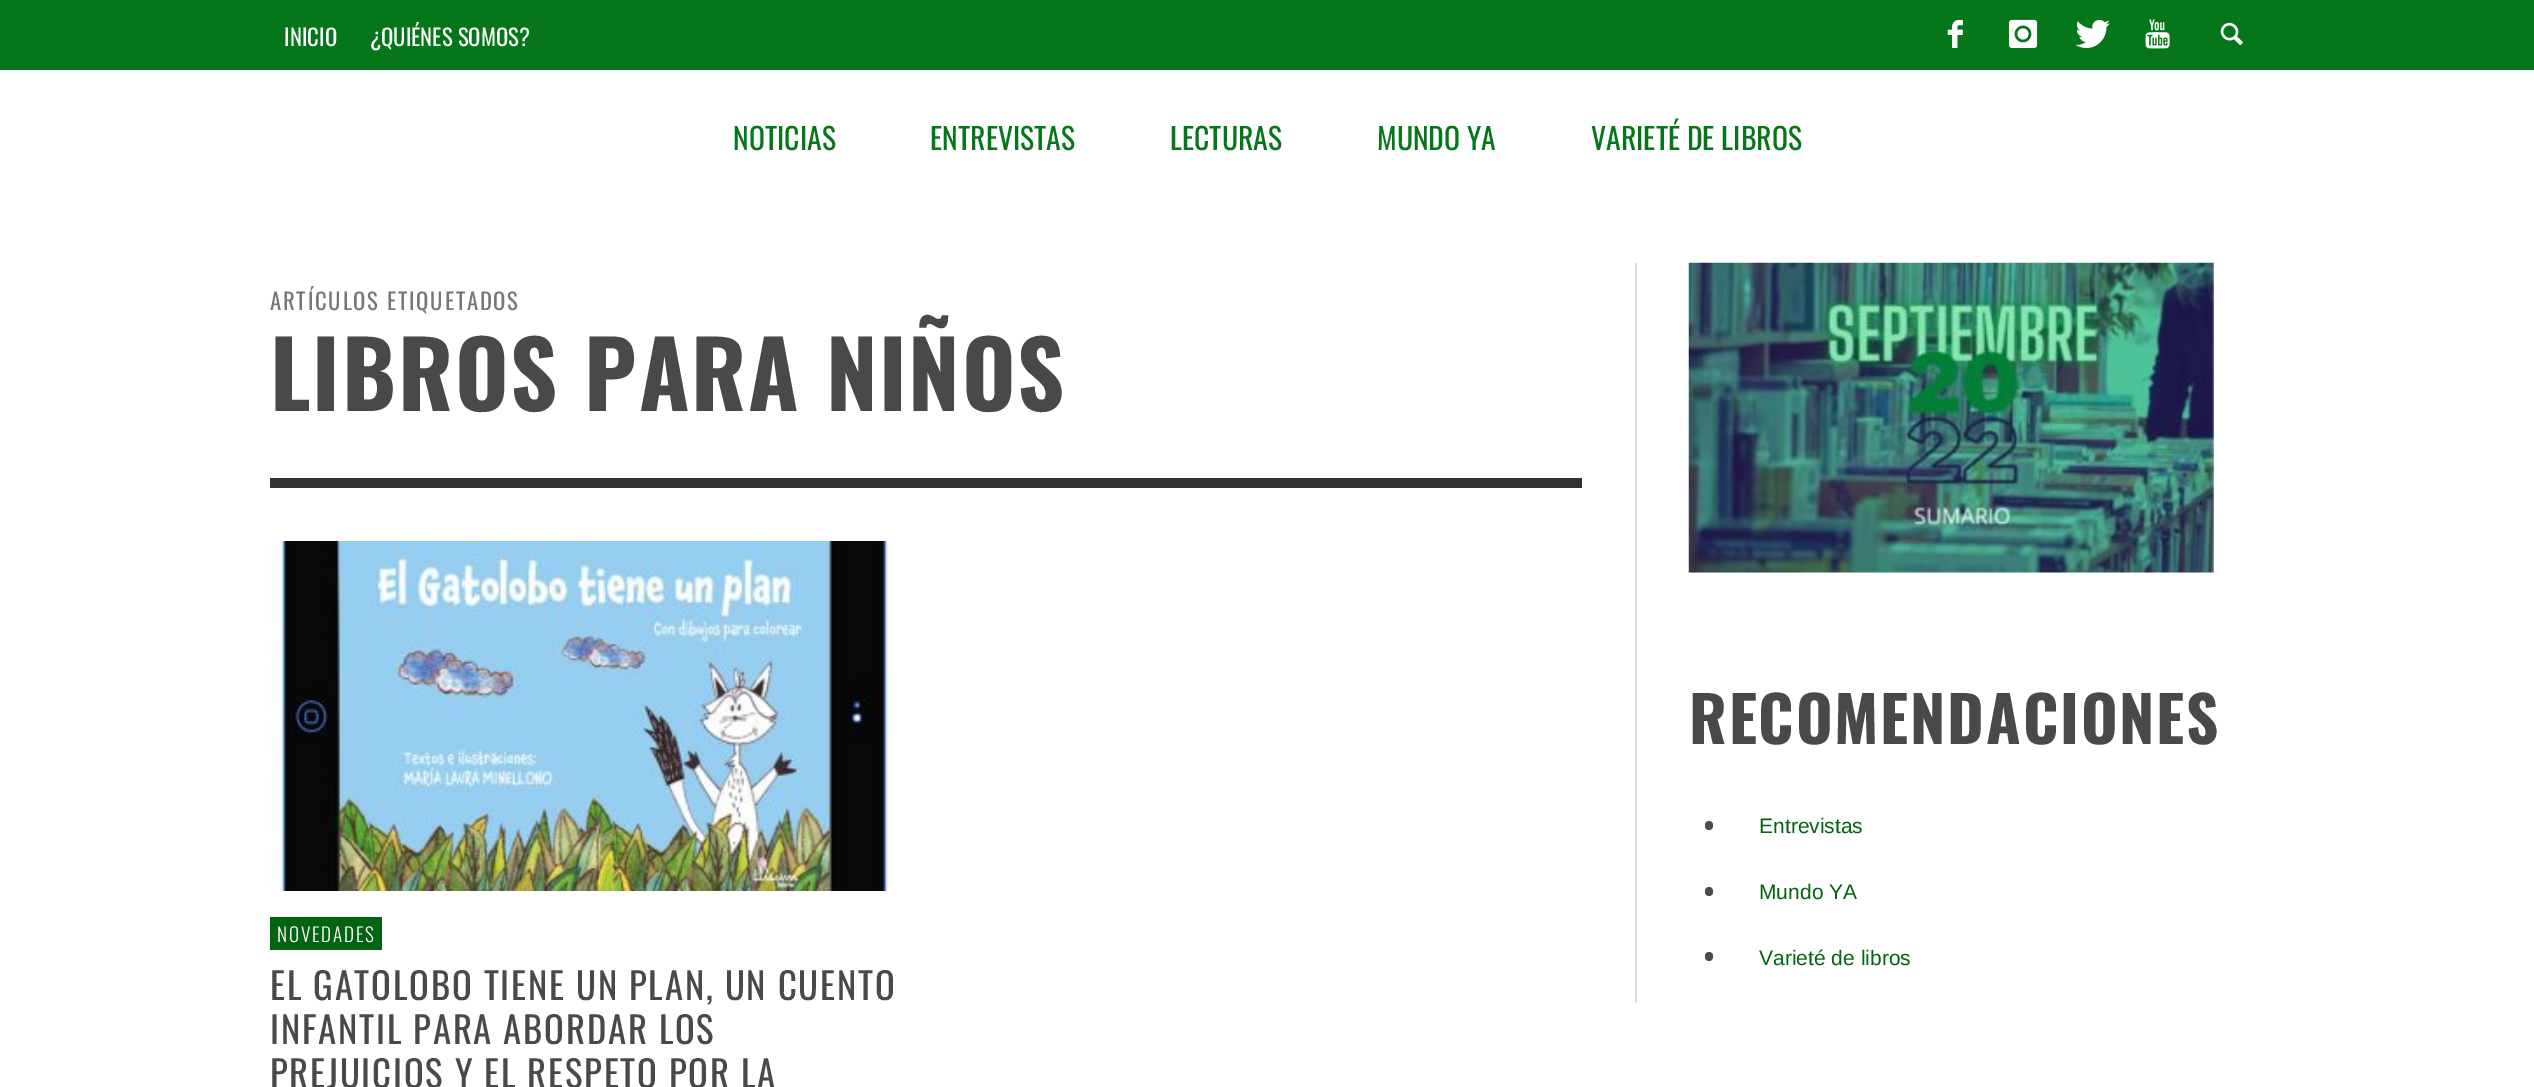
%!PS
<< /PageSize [2534 1087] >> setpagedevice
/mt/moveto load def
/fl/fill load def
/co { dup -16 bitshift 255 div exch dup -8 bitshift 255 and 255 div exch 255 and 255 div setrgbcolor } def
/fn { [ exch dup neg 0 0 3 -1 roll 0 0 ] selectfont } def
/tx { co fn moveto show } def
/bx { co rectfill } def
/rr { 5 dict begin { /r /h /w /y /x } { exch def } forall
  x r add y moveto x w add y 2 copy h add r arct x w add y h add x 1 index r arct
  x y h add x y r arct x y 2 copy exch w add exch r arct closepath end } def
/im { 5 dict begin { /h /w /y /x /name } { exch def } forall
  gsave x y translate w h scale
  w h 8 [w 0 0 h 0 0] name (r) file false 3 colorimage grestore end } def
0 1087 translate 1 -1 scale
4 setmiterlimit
0 0 2534 1087 16#FFFFFF bx
0 0 2534 70 16#05771A bx
(media/1.raw) 1947 19 16 29 im
(media/2.raw) 2009 19 29 29 im
(media/3.raw) 2075 19 35 29 im
(media/4.raw) 2145 19 25 30 im
(media/5.raw) 2220 22 23 23 im
270 478 1312 10 16#333333 bx
(media/6.raw) 270 541 622 350 im
270 917 112 33 16#026311 bx
1635 263 2 740 16#DDDDDD bx
(media/7.raw) 1688 262 526 311 im
16#4C4C4C co
1705 821 8 9 4 rr fl
1705 887 8 9 4 rr fl
1705 952 8 9 4 rr fl
(INICIO) 284 46 /Oswald-Regular 22.75 16#FFFFFF tx
(¿QUIÉNES SOMOS?) 370 46 /Oswald-Regular 22.75 16#FFFFFF tx
(NOTICIAS) 733 150 /Oswald-Regular 29.75 16#05771A tx
(ENTREVISTAS) 930 150 /Oswald-Regular 29.75 16#05771A tx
(LECTURAS) 1170 150 /Oswald-Regular 29.75 16#05771A tx
(MUNDO YA) 1377 150 /Oswald-Regular 29.75 16#05771A tx
(VARIETÉ DE LIBROS) 1591 150 /Oswald-Regular 29.75 16#05771A tx
/Oswald-Regular 22.75 fn
16#777777 co
270 310 mt 1.75 0 (ARTÍCULOS ETIQUETADOS) ashow
/Oswald-Bold 91.9 fn
16#494949 co
270 411 mt 1.75 0 (LIBROS PARA NIÑOS) ashow
/Oswald-Light 19.25 fn
16#FFFFFF co
277 942 mt 1.75 0 (NOVEDADES) ashow
/Oswald-Regular 36.75 fn
16#494949 co
270 1000 mt 1.75 0 (EL GATOLOBO TIENE UN PLAN, UN CUENTO) ashow
270 1044 mt 1.75 0 (INFANTIL PARA ABORDAR LOS) ashow
270 1088 mt 1.75 0 (PREJUICIOS Y EL RESPETO POR LA) ashow
/Oswald-Bold 63 fn
1689 744 mt 1.75 0 (RECOMENDACIONES) ashow
(Entrevistas) 1759 833 /LiberationSans-Regular 21 16#026311 tx
(Mundo YA) 1759 899 /LiberationSans-Regular 21 16#026311 tx
(Varieté de libros) 1759 965 /LiberationSans-Regular 21 16#026311 tx
showpage
